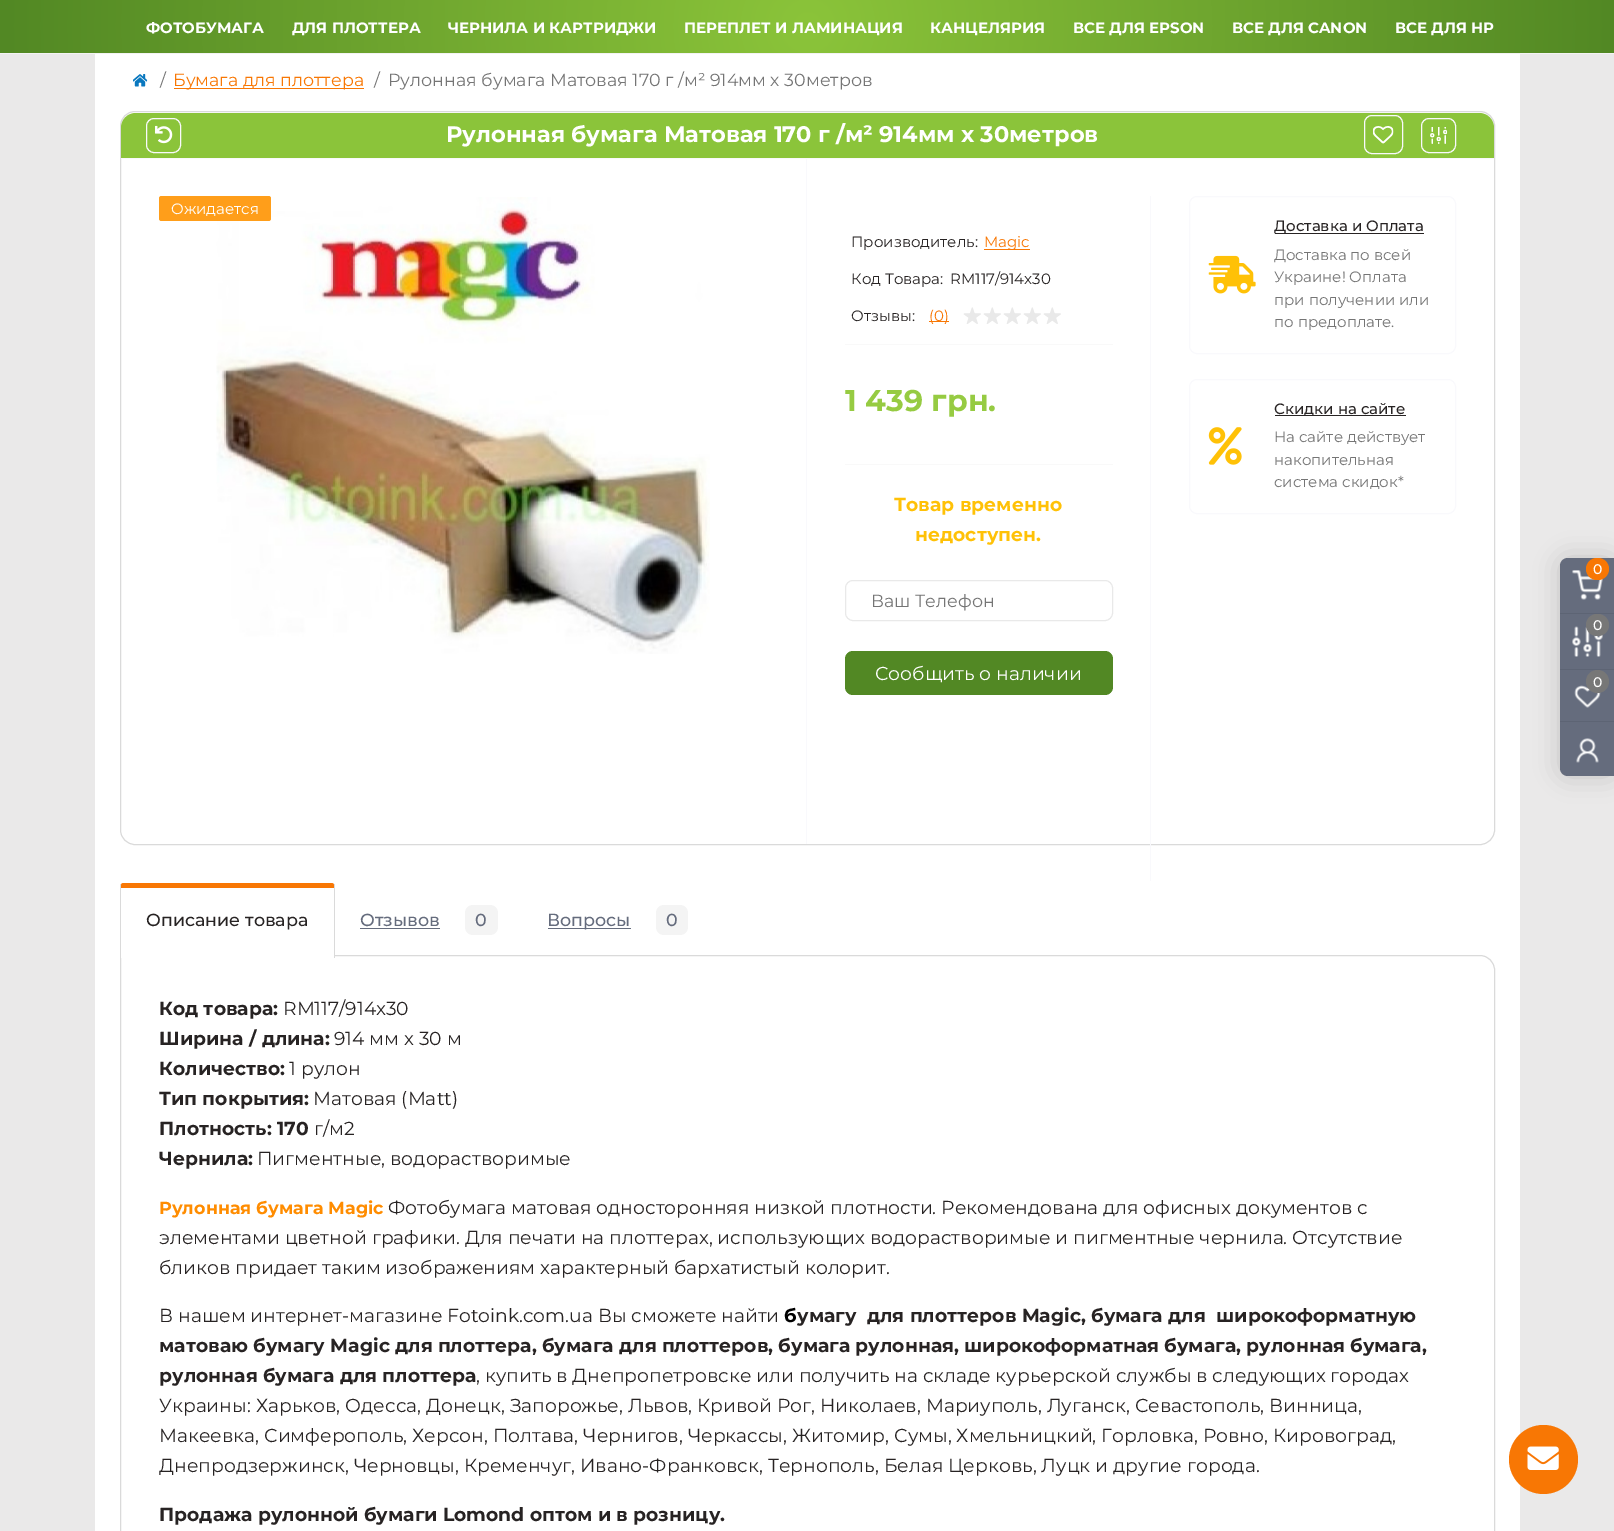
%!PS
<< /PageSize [1614 1531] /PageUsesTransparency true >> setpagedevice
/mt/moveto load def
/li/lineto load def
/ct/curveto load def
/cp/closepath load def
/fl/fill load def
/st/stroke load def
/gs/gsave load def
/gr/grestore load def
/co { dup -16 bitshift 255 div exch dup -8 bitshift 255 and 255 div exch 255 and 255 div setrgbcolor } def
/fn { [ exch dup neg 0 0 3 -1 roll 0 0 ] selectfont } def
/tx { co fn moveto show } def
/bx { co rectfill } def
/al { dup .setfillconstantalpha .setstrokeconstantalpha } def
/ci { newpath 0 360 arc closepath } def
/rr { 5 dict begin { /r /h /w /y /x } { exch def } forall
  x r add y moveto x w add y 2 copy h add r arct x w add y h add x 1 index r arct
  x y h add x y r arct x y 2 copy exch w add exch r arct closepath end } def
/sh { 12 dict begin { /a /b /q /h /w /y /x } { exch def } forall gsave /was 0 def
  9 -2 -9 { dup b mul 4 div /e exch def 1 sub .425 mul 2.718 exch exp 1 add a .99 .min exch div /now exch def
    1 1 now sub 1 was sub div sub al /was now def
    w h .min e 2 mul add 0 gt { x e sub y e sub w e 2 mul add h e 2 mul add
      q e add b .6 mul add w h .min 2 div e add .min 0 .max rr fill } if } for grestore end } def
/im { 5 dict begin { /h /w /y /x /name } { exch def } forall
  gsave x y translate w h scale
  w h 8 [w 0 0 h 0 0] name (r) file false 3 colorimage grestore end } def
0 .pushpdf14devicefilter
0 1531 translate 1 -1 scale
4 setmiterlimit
0 0 1614 1531 16#EAE9E9 bx
gs 0 0 mt 1614 0 li 1614 53 li 0 53 li cp clip newpath 808 26 translate 808 808 scale
<< /ShadingType 3 /ColorSpace /DeviceRGB /Coords [0 0 0 0 0 1] /Extend [true true] /Function << /FunctionType 2 /Domain [0 1] /C0 [.545 .769 .227] /C1 [.322 .533 .141] /N 1 >> >> shfill gr
0 53 1614 1 16#F3F3F3 bx
95 54 1425 1477 16#FFFFFF bx
(media/1.raw) 133 74 15 13 im
174 88 190 1 16#F87704 bx
16#DADADA co
120.5 111.5 1374 733 14.5 rr st
16#8BC43A co
136 113 mt 1479 113 li 1487.5 113 1494 119.5 1494 128 ct 1494 159 li 121 159 li 121 128 li 121 119.5 127.5 113 136 113 ct cp fl
121 158 1373 1 16#F9F9FC bx
146.5 118.5 34 34 7.5 rr st
(media/2.raw) 155 125 18 19 im
1364.5 115.5 38 38 7.5 rr st
(media/3.raw) 1373 126 21 18 im
1421.5 118.5 34 34 7.5 rr st
(media/4.raw) 1430 127 18 17 im
806 159 1 685 16#F9F9FC bx
(media/5.raw) 216 197 494 457 im
16#FF9E1A co
159 196 112 25 2.5 rr fl
1150 196 1 685 16#F9F9FC bx
845 344 268 1 16#F9F9F9 bx
984 249 46 1 16#F87704 bx
929 321 20 1 16#F87704 bx
(media/6.raw) 963 307 18 17 im
(media/6.raw) 983 307 18 17 im
(media/7.raw) 1003 307 18 17 im
(media/6.raw) 1023 307 18 17 im
(media/6.raw) 1043 307 18 17 im
845 464 268 1 16#F9F9F9 bx
16#E9E9E9 co
845.5 580.5 267 40 7.5 rr st
16#528824 co
845 651 268 44 8 rr fl
16#F9F9FC co
1189.5 196.5 266 157 7.5 rr st
(media/8.raw) 1208 255 48 39 im
1275 233 149 1 16#272323 bx
16#F9F9FC co
1189.5 379.5 266 134 7.5 rr st
(media/9.raw) 1208 427 34 38 im
1275 415 131 1 16#272323 bx
16#DADADA co
120.5 955.5 mt 1480 955.5 li 1488 955.5 1494.5 962 1494.5 970 ct 1494.5 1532 li 1494.5 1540 1488 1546.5 1480 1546.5 ct 135 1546.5 li 127 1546.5 120.5 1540 120.5 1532 ct cp st
16#FFFFFF co
122.5 883 mt 332.5 883 li 334 883 335 884 335 885.5 ct 335 958 li 120 958 li 120 885.5 li 120 884 121 883 122.5 883 ct cp fl
334 884 1 74 16#DADADA bx
120 884 1 74 16#DADADA bx
16#F87704 co
123.5 883 mt 331.5 883 li 333 883 334 884 334 885.5 ct 334 888 li 121 888 li 121 885.5 li 121 884 122 883 123.5 883 ct cp fl
360 928 80 1 16#656C7D bx
16#F4F4F4 co
465 905 33 30 8 rr fl
548 928 83 1 16#656C7D bx
16#F4F4F4 co
656 905 32 30 8 rr fl
16#000000 co
1560 558 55 218 8 12.5 .17 sh
16#656C7D co
1568 558 mt 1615 558 li 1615 776 li 1568 776 li 1563.5 776 1560 772.5 1560 768 ct 1560 566 li 1560 561.5 1563.5 558 1568 558 ct cp fl
(media/10.raw) 1572 570 31 30 im
16#F87704 co
1586 558 23 22 11 rr fl
1560 613 54 1 16#5D6474 bx
(media/11.raw) 1572 626 31 31 im
16#777777 co
1586 614 23 22 11 rr fl
1560 669 54 1 16#5D6474 bx
(media/12.raw) 1574 685 27 23 im
16#777777 co
1597.5 681.5 11.5 ci fl
1560 721 54 1 16#5D6474 bx
(media/13.raw) 1576 738 23 25 im
16#F87704 co
1543.5 1459.5 34.5 ci fl
(media/14.raw) 1527 1446 32 24 im
(ФОТОБУМАГА) 146 33 /Montserrat-Bold 15 16#FFFFFF tx
(ДЛЯ ПЛОТТЕРА) 292 33 /Montserrat-Bold 15 16#FFFFFF tx
(ЧЕРНИЛА И КАРТРИДЖИ) 448 33 /Montserrat-Bold 15 16#FFFFFF tx
(ПЕРЕПЛЕТ И ЛАМИНАЦИЯ) 684 33 /Montserrat-Bold 15 16#FFFFFF tx
(КАНЦЕЛЯРИЯ) 930 33 /Montserrat-Bold 15 16#FFFFFF tx
(ВСЕ ДЛЯ EPSON) 1073 33 /Montserrat-Bold 15 16#FFFFFF tx
(ВСЕ ДЛЯ CANON) 1232 33 /Montserrat-Bold 15 16#FFFFFF tx
(ВСЕ ДЛЯ HP) 1395 33 /Montserrat-Bold 15 16#FFFFFF tx
(/) 160 86 /Montserrat-Regular 17.5 16#757575 tx
(Бумага для плоттера) 173 86 /Montserrat-Regular 17.5 16#F87704 tx
(/) 374 86 /Montserrat-Regular 17.5 16#757575 tx
(Рулонная бумага Матовая 170 г /м² 914мм х 30метров) 388 86 /Montserrat-Regular 17.5 16#757575 tx
(Рулонная бумага Матовая 170 г /м² 914мм х 30метров) 446 142 /Montserrat-Bold 22.5 16#FFFFFF tx
(Ожидается) 171 214 /Montserrat-Regular 15 16#FFFFFF tx
(Производитель:) 851 247 /Montserrat-Regular 15 16#272323 tx
(Magic) 984 247 /Montserrat-Regular 15 16#F87704 tx
(Код Товара:) 851 284 /Montserrat-Regular 15 16#272323 tx
(RM117/914x30) 950 284 /Montserrat-Regular 15 16#272323 tx
(Отзывы:) 851 321 /Montserrat-Regular 15 16#272323 tx
(\(0\)) 929 321 /Montserrat-Regular 15 16#F87704 tx
(1 439 грн.) 845 411 /Montserrat-Bold 30 16#96CB42 tx
(Товар временно) 894 511 /Montserrat-Bold 18.75 16#FFC107 tx
(недоступен.) 915 541 /Montserrat-Bold 18.75 16#FFC107 tx
(Ваш Телефон) 871 607 /Montserrat-Regular 17.5 16#757575 tx
(Сообщить о наличии) 875 680 /Montserrat-Regular 18.75 16#FFFFFF tx
(Доставка и Оплата) 1274 231 /Montserrat-Medium 15 16#272323 tx
(Доставка по всей) 1274 260 /Montserrat-Regular 15 16#757575 tx
(Украине! Оплата) 1274 282 /Montserrat-Regular 15 16#757575 tx
(при получении или) 1274 305 /Montserrat-Regular 15 16#757575 tx
(по предоплате.) 1274 327 /Montserrat-Regular 15 16#757575 tx
(Скидки на сайте) 1274 414 /Montserrat-Medium 15 16#272323 tx
(На сайте действует) 1274 442 /Montserrat-Regular 15 16#757575 tx
(накопительная) 1274 465 /Montserrat-Regular 15 16#757575 tx
(система скидок*) 1274 487 /Montserrat-Regular 15 16#757575 tx
(Описание товара) 146 926 /Montserrat-Medium 17.5 16#272323 tx
(Отзывов) 360 926 /Montserrat-Medium 17.5 16#656C7D tx
(0) 475 926 /Montserrat-Medium 17.5 16#656C7D tx
(Вопросы) 547 926 /Montserrat-Medium 17.5 16#656C7D tx
(0) 666 926 /Montserrat-Medium 17.5 16#656C7D tx
(Код товара:) 159 1015 /Montserrat-Bold 18.75 16#272323 tx
(RM117/914x30) 283 1015 /Montserrat-Regular 18.75 16#272323 tx
(Ширина / длина:) 159 1045 /Montserrat-Bold 18.75 16#272323 tx
(914 мм х 30 м) 334 1045 /Montserrat-Regular 18.75 16#272323 tx
(Количество:) 159 1075 /Montserrat-Bold 18.75 16#272323 tx
(1 рулон) 289 1075 /Montserrat-Regular 18.75 16#272323 tx
(Тип покрытия:) 159 1105 /Montserrat-Bold 18.75 16#272323 tx
(Матовая \(Matt\)) 313 1105 /Montserrat-Regular 18.75 16#272323 tx
(Плотность: 170) 159 1135 /Montserrat-Bold 18.75 16#272323 tx
(г/м2) 314 1135 /Montserrat-Regular 18.75 16#272323 tx
(Чернила:) 159 1165 /Montserrat-Bold 18.75 16#272323 tx
(Пигментные, водорастворимые) 257 1165 /Montserrat-Regular 18.75 16#272323 tx
(Рулонная бумага Magic) 159 1214 /Montserrat-Bold 17.5 16#FF8C00 tx
(Фотобумага матовая односторонняя низкой плотности. Рекомендована для офисных документов с) 388 1214 /Montserrat-Regular 18.75 16#272323 tx
(элементами цветной графики. Для печати на плоттерах, использующих водорастворимые и пигментные чернила. Отсутствие) 159 1244 /Montserrat-Regular 18.75 16#272323 tx
(бликов придает таким изображениям характерный бархатистый колорит.) 159 1274 /Montserrat-Regular 18.75 16#272323 tx
(В нашем интернет-магазине Fotoink.com.ua Вы сможете найти) 159 1322 /Montserrat-Regular 18.75 16#272323 tx
(б) 784 1322 /Montserrat-Bold 18.75 16#000000 tx
(умагу  для плоттеров Magic, бумага для  широкоформатную) 797 1322 /Montserrat-Bold 18.75 16#272323 tx
(матоваю бумагу Magic для плоттера, бумага для плоттеров, бумага рулонная, широкоформатная бумага, рулонная бумага,) 159 1352 /Montserrat-Bold 18.75 16#272323 tx
(рулонная бумага для плоттера) 159 1382 /Montserrat-Bold 18.75 16#272323 tx
(, купить в Днепропетровске или получить на складе курьерской службы в следующих городах) 476 1382 /Montserrat-Regular 18.75 16#272323 tx
(Украины: Харьков, Одесса, Донецк, Запорожье, Львов, Кривой Рог, Николаев, Мариуполь, Луганск, Севастополь, Винница,) 159 1412 /Montserrat-Regular 18.75 16#272323 tx
(Макеевка, Симферополь, Херсон, Полтава, Чернигов, Черкассы, Житомир, Сумы, Хмельницкий, Горловка, Ровно, Кировоград,) 159 1442 /Montserrat-Regular 18.75 16#272323 tx
(Днепродзержинск, Черновцы, Кременчуг, Ивано-Франковск, Тернополь, Белая Церковь, Луцк и другие города.) 159 1472 /Montserrat-Regular 18.75 16#272323 tx
(Продажа рулонной бумаги Lomond оптом и в розницу.) 159 1521 /Montserrat-Bold 18.75 16#272323 tx
(0) 1593 574 /Montserrat-Medium 14 16#FFFFFF tx
(0) 1593 630 /Montserrat-Medium 14 16#FFFFFF tx
(0) 1593 687 /Montserrat-Medium 14 16#FFFFFF tx
.poppdf14devicefilter showpage
